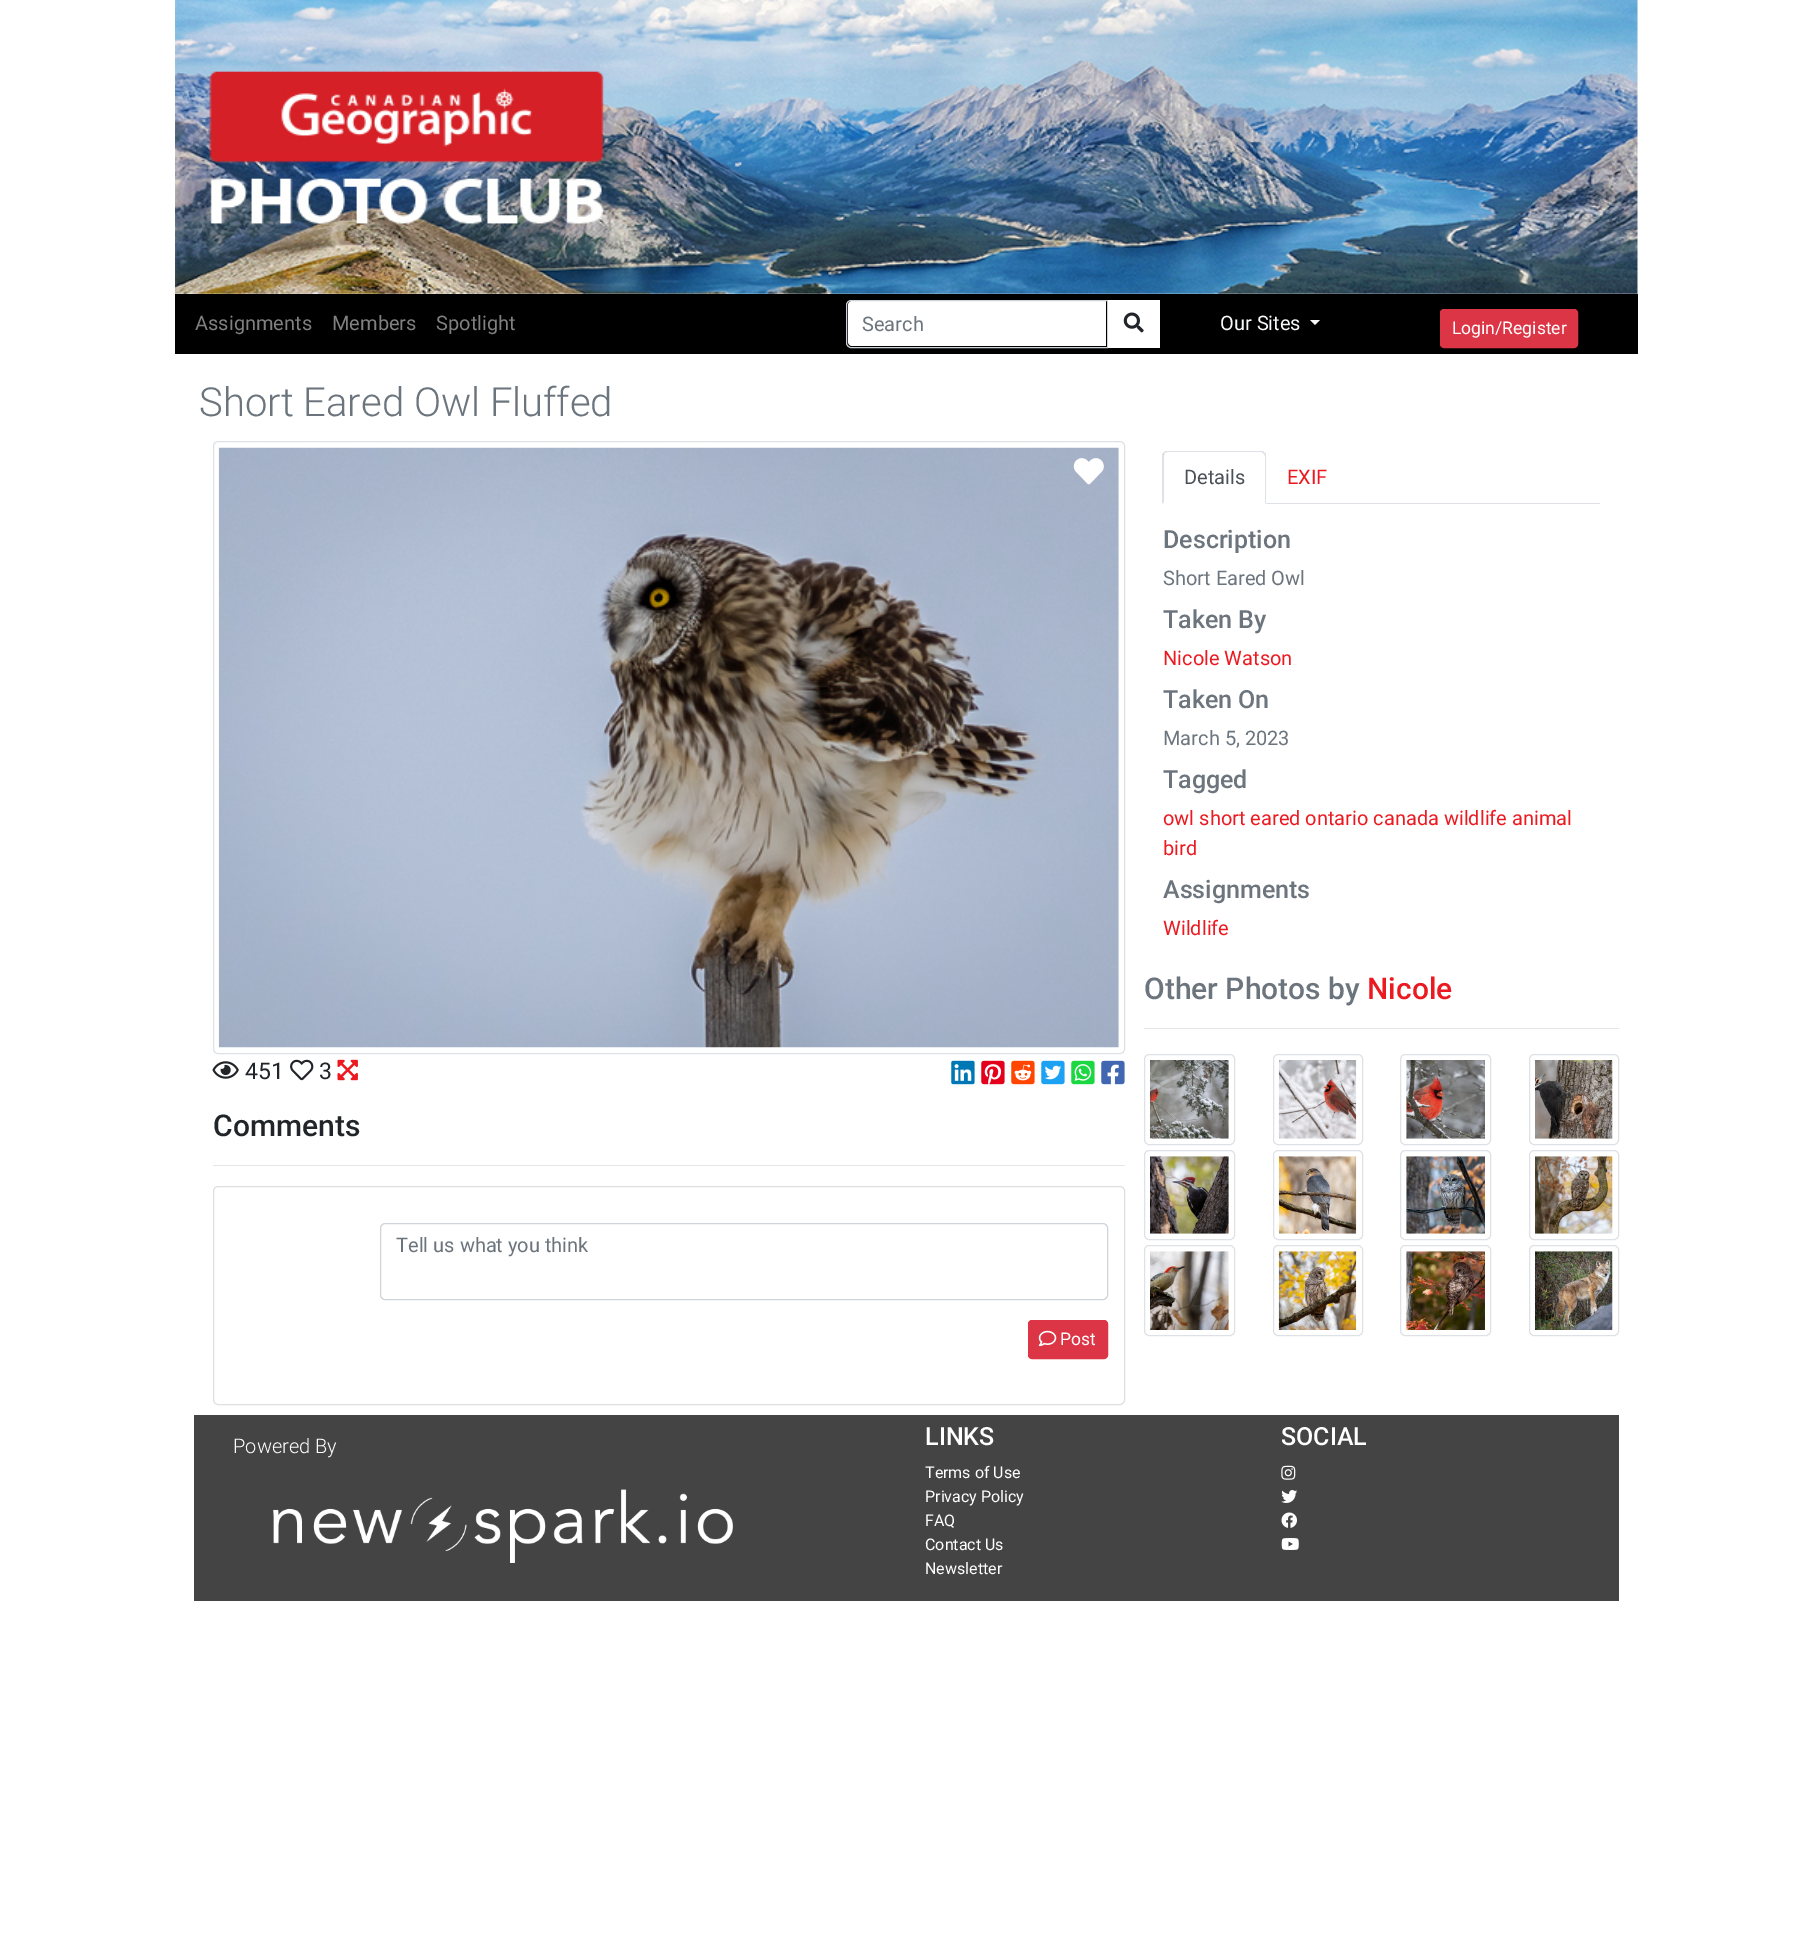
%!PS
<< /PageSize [1812 1938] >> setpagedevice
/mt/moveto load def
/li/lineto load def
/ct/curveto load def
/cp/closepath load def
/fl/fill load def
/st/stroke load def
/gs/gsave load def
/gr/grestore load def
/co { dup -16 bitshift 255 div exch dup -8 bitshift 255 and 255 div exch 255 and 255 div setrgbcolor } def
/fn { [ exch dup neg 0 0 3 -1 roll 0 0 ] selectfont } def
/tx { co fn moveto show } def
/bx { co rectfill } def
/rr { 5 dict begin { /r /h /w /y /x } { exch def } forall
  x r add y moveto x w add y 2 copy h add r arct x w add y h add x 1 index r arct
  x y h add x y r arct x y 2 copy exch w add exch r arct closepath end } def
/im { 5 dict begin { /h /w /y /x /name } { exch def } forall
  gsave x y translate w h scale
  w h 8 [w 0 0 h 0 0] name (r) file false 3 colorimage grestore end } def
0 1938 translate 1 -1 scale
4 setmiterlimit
0 0 1812 1938 16#FFFFFF bx
(media/1.raw) 175 0 1463 294 im
175 294 1463 60 16#000000 bx
16#FFFFFF co
852 301 mt 1106 301 li 1106 346 li 852 346 li 850 346 848 344 848 342 ct 848 305 li 848 303 850 301 852 301 ct cp fl
16#CED4DA co
851 300.5 mt 1107.5 300.5 li 1107.5 347.5 li 851 347.5 li 848.5 347.5 846.5 345.5 846.5 343 ct 846.5 305 li 846.5 302.5 848.5 300.5 851 300.5 ct cp st
1108 300 52 48 16#FFFFFF bx
(media/2.raw) 1123 312 21 21 im
16#F8F9FA co
1310 320 mt 1320 320 li 1315 325 li cp fl
16#DC3545 co
1440.5 309.5 137 38 3.5 rr gs fl gr
st
1266 503 334 1 16#DEE2E6 bx
1168 452 mt 1166 452 1165 453 1165 453 ct 1164 452 li 1166 451 li 1263 451 li 1265 453 li 1264 454 li 1263 453 1262 452 1261 452 ct cp fl
1265 453 mt 1266 453 1266 455 1266 456 ct 1266 504 li 1264 502 li 1265 502 li 1265 456 li 1264 454 li cp fl
16#FFFFFF co
1266 504 mt 1162 504 li 1164 502 li 1264 502 li cp fl
16#DEE2E6 co
1162 504 mt 1162 454 li 1164 452 li 1165 453 li 1164 456 li 1164 502 li cp fl
1144 1028 475 1 16#E6E6E6 bx
16#DEE2E6 co
1144.5 1054.5 90 90 4.5 rr st
(media/3.raw) 1150 1060 79 79 im
1273.5 1054.5 89 90 4.5 rr st
(media/4.raw) 1278 1060 79 79 im
1400.5 1054.5 90 90 4.5 rr st
(media/5.raw) 1406 1060 79 79 im
1529.5 1054.5 89 90 4.5 rr st
(media/6.raw) 1535 1060 78 79 im
1144.5 1150.5 90 89 4.5 rr st
(media/7.raw) 1150 1156 79 78 im
1273.5 1150.5 89 89 4.5 rr st
(media/8.raw) 1278 1156 79 78 im
1400.5 1150.5 90 89 4.5 rr st
(media/9.raw) 1406 1156 79 78 im
1529.5 1150.5 89 89 4.5 rr st
(media/10.raw) 1535 1156 78 78 im
1144.5 1245.5 90 90 4.5 rr st
(media/11.raw) 1150 1251 79 79 im
1273.5 1245.5 89 90 4.5 rr st
(media/12.raw) 1278 1251 79 79 im
1400.5 1245.5 90 90 4.5 rr st
(media/13.raw) 1406 1251 79 79 im
1529.5 1245.5 89 90 4.5 rr st
(media/14.raw) 1535 1251 78 79 im
213.5 441.5 911 612 4.5 rr st
(media/15.raw) 218 447 901 601 im
(media/16.raw) 1073 458 31 27 im
(media/17.raw) 212 1061 27 18 im
(media/18.raw) 290 1059 24 22 im
(media/19.raw) 337 1059 21 22 im
(media/20.raw) 951 1060 24 25 im
(media/21.raw) 981 1060 24 25 im
(media/22.raw) 1011 1060 24 25 im
(media/23.raw) 1041 1060 24 25 im
(media/24.raw) 1071 1060 24 25 im
(media/25.raw) 1101 1060 24 25 im
213 1165 912 1 16#E6E6E6 bx
16#DFDFDF co
213.5 1186.5 911 218 4.5 rr st
16#CED4DA co
380.5 1223.5 727 76 4.5 rr st
16#DC3545 co
1028.5 1320.5 79 38 3.5 rr gs fl gr
st
(media/26.raw) 1038 1330 19 17 im
194 1415 1425 186 16#444444 bx
(media/27.raw) 273 1489 460 74 im
(media/28.raw) 1281 1465 15 15 im
(media/29.raw) 1281 1490 17 13 im
(media/30.raw) 1281 1512 16 16 im
(media/31.raw) 1281 1538 18 12 im
(Assignments) 195 330 /Roboto-Regular 20 16#808080 tx
(Members) 332 330 /Roboto-Regular 20 16#808080 tx
(Spotlight) 436 330 /Roboto-Regular 20 16#808080 tx
(Search) 862 331 /Roboto-Regular 20 16#6C757D tx
(Our Sites) 1220 330 /Roboto-Regular 20 16#F8F9FA tx
(Login/Register) 1452 334 /Roboto-Regular 17.5 16#FFFFFF tx
(Short Eared Owl Fluffed) 199 416 /Roboto-Light 40 16#6C757D tx
(Details) 1184 484 /Roboto-Regular 20 16#495057 tx
(EXIF) 1287 484 /Roboto-Regular 20 16#EB1A21 tx
(Description) 1163 548 /Roboto-Medium 25 16#6C757D tx
(Short Eared Owl) 1163 585 /Roboto-Regular 20 16#6C757D tx
(Taken By) 1163 628 /Roboto-Medium 25 16#6C757D tx
(Nicole Watson) 1163 665 /Roboto-Regular 20 16#EB1A21 tx
(Taken On) 1163 708 /Roboto-Medium 25 16#6C757D tx
(March 5, 2023) 1163 745 /Roboto-Regular 20 16#6C757D tx
(Tagged) 1163 788 /Roboto-Medium 25 16#6C757D tx
(owl short eared ontario canada wildlife animal) 1163 825 /Roboto-Regular 20 16#EB1A21 tx
(bird) 1163 855 /Roboto-Regular 20 16#EB1A21 tx
(Assignments) 1163 898 /Roboto-Medium 25 16#6C757D tx
(Wildlife) 1163 935 /Roboto-Regular 20 16#EB1A21 tx
(Other Photos by) 1144 999 /Roboto-Medium 30 16#6C757D tx
(Nicole) 1367 999 /Roboto-Medium 30 16#EB1A21 tx
(451) 245 1079 /Roboto-Regular 23 16#212529 tx
(3) 319 1079 /Roboto-Regular 23 16#212529 tx
(Comments) 213 1136 /Roboto-Medium 30 16#212529 tx
(Tell us what you think) 396 1252 /Roboto-Regular 20 16#6C757D tx
(Post) 1060 1345 /Roboto-Regular 17.5 16#FFFFFF tx
(Powered By) 233 1453 /Roboto-Light 20 16#FFFFFF tx
(LINKS) 925 1445 /Roboto-Medium 25 16#FFFFFF tx
(Terms of Use) 925 1478 /Roboto-Regular 16 16#FFFFFF tx
(Privacy Policy) 925 1502 /Roboto-Regular 16 16#FFFFFF tx
(FAQ) 925 1526 /Roboto-Regular 16 16#FFFFFF tx
(Contact Us) 925 1550 /Roboto-Regular 16 16#FFFFFF tx
(Newsletter) 925 1574 /Roboto-Regular 16 16#FFFFFF tx
(SOCIAL) 1281 1445 /Roboto-Medium 25 16#FFFFFF tx
showpage
